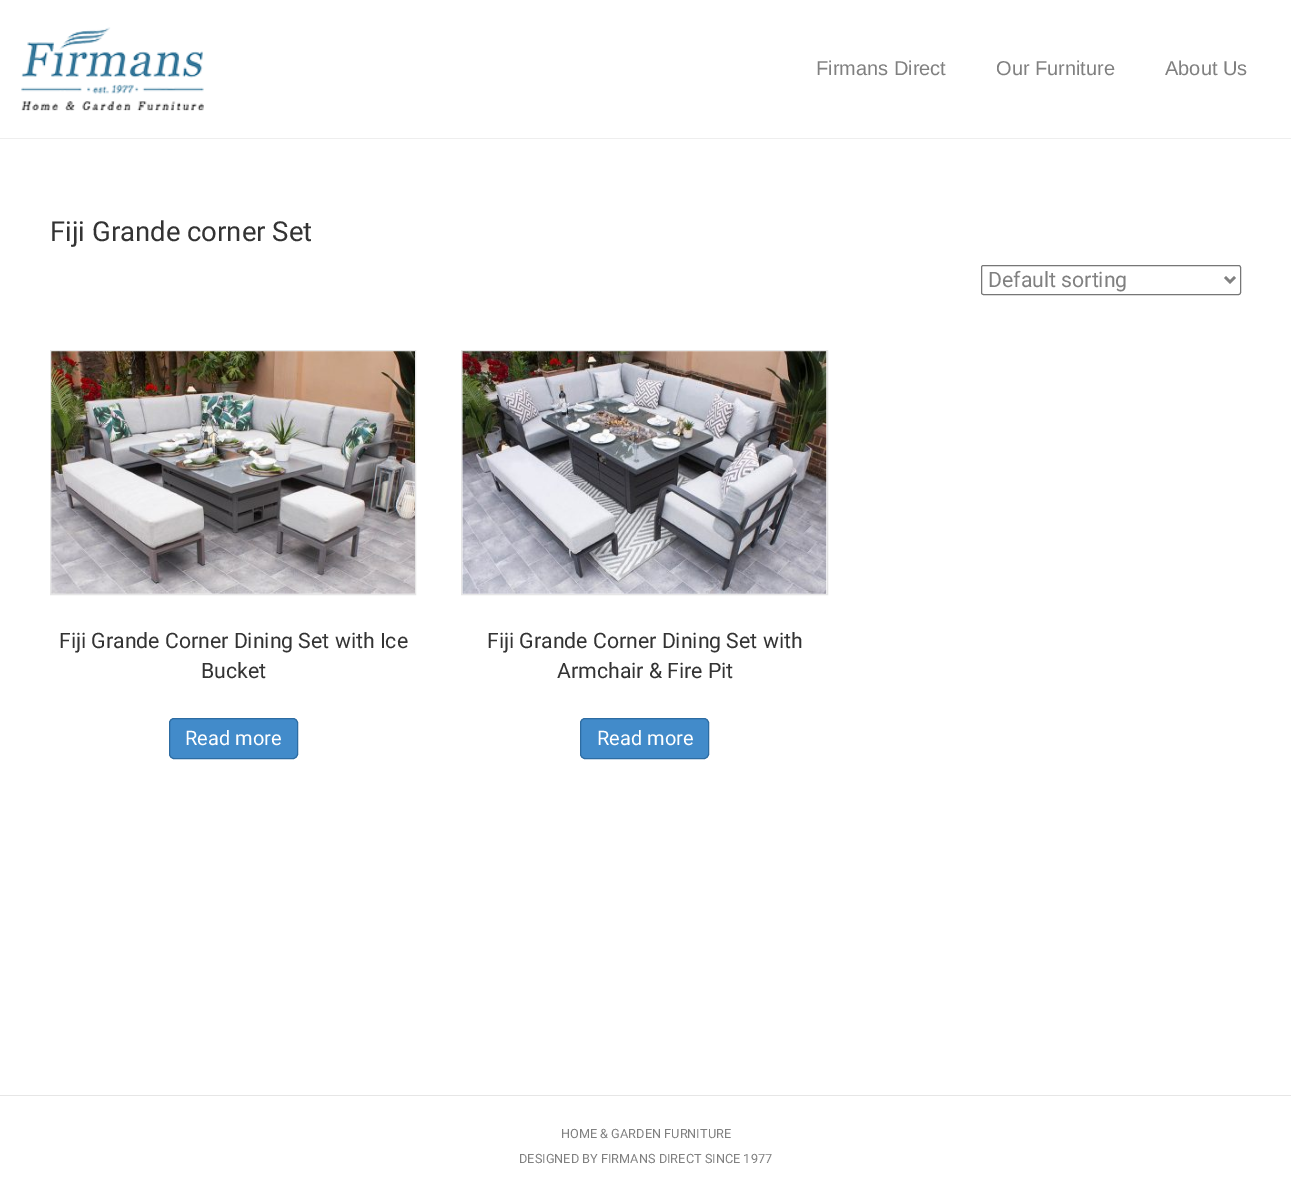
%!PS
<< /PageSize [1291 1196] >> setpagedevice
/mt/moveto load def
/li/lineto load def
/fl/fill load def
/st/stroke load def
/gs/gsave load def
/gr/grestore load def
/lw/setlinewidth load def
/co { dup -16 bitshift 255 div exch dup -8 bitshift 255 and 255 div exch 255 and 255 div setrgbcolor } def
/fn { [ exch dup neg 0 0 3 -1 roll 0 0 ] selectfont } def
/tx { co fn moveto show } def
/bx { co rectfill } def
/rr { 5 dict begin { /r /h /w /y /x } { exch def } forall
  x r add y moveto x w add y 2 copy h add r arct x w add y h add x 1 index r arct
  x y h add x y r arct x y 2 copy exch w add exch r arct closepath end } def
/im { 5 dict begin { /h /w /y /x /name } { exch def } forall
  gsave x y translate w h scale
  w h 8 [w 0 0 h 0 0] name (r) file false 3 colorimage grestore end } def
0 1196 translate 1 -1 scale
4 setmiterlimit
0 0 1291 1196 16#FFFFFF bx
0 138 1291 1 16#EEEEEE bx
(media/1.raw) 21 27 183 84 im
16#767676 co
981.5 265.5 259 29 2 rr st
16#808080 co
2.5 lw
1225 277 mt 1230 282 li 1235 277 li st
16#E6E6E6 co
1 lw
50.5 350.5 365 244 rectstroke
(media/2.raw) 51 351 364 243 im
16#428BCA co
169.5 718.5 128 40 4.5 rr gs fl gr
16#2D6CA2 co
st
16#E6E6E6 co
461.5 350.5 366 244 rectstroke
(media/3.raw) 462 351 365 243 im
16#428BCA co
580.5 718.5 128 40 4.5 rr gs fl gr
16#2D6CA2 co
st
0 1095 1291 1 16#E6E6E6 bx
(Firmans Direct) 816 75 /LiberationSans-Regular 20 16#808080 tx
(Our Furniture) 996 75 /LiberationSans-Regular 20 16#808080 tx
(About Us) 1165 75 /LiberationSans-Regular 20 16#808080 tx
(Fiji Grande corner Set) 50 241 /Roboto-Regular 27.5 16#333333 tx
(Default sorting) 988 287 /Roboto-Regular 21.25 16#808080 tx
(Fiji Grande Corner Dining Set with Ice) 59 648 /Roboto-Regular 21.25 16#333333 tx
(Bucket) 201 678 /Roboto-Regular 21.25 16#333333 tx
(Read more) 185 745 /Roboto-Regular 20 16#FFFFFF tx
(Fiji Grande Corner Dining Set with) 487 648 /Roboto-Regular 21.25 16#333333 tx
(Armchair & Fire Pit) 557 678 /Roboto-Regular 21.25 16#333333 tx
(Read more) 597 745 /Roboto-Regular 20 16#FFFFFF tx
(HOME & GARDEN FURNITURE) 561 1138 /Roboto-Regular 12.75 16#808080 tx
(DESIGNED BY FIRMANS DIRECT SINCE 1977) 519 1163 /Roboto-Regular 12.75 16#808080 tx
showpage
